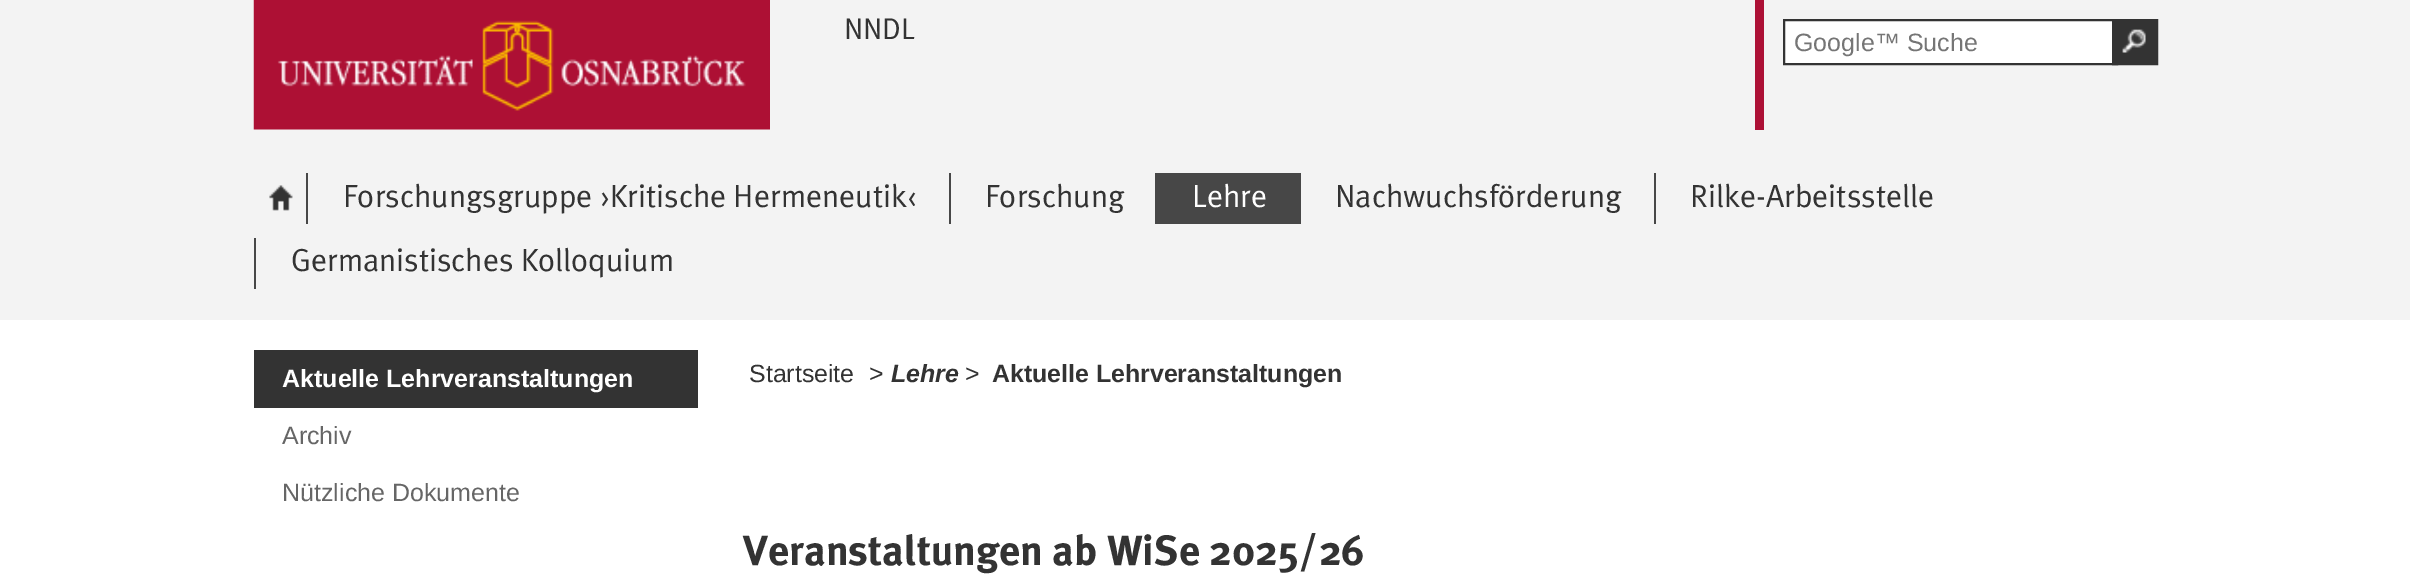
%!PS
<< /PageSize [2410 588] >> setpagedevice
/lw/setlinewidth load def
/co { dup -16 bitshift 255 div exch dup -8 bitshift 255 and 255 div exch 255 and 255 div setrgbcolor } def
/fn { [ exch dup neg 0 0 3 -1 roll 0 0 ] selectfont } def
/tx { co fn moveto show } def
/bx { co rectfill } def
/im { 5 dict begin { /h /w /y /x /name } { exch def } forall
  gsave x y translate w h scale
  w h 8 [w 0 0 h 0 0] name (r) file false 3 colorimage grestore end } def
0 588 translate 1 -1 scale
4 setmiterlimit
0 0 2410 588 16#FFFFFF bx
0 0 2410 320 16#F3F3F3 bx
(media/1.raw) 253 0 517 130 im
1755 0 9 130 16#AC1035 bx
1785 21 327 42 16#FFFFFF bx
16#333333 co
2 lw
1784 20 333 44 rectstroke
2113 20 44 44 rectstroke
2114 21 42 42 16#333333 bx
(media/2.raw) 2122 29 24 24 im
(media/3.raw) 269 185 24 26 im
306 173 2 51 16#474747 bx
949 173 2 51 16#474747 bx
1155 173 2 51 16#474747 bx
1157 180 142 37 16#474747 bx
1155 173 145 7 16#474747 bx
1299 173 2 51 16#474747 bx
1155 217 145 7 16#474747 bx
1654 173 2 51 16#474747 bx
254 238 2 51 16#474747 bx
254 350 444 58 16#333333 bx
(NNDL) 844 39 /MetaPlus-Regular 30 16#333333 tx
(Google™ Suche) 1794 51 /LiberationSans-Regular 25 16#757575 tx
(Forschungsgruppe ›Kritische Hermeneutik‹) 343 207 /MetaPlus-Regular 32 16#333333 tx
(Forschung) 985 207 /MetaPlus-Regular 32 16#333333 tx
(Lehre) 1192 207 /MetaPlus-Regular 32 16#FFFFFF tx
(Nachwuchsförderung) 1335 207 /MetaPlus-Regular 32 16#333333 tx
(Rilke-Arbeitsstelle) 1690 207 /MetaPlus-Regular 32 16#333333 tx
(Germanistisches Kolloquium) 291 271 /MetaPlus-Regular 32 16#333333 tx
(Aktuelle Lehrveranstaltungen) 282 387 /LiberationSans-Bold 25 16#FFFFFF tx
(Archiv) 282 444 /LiberationSans-Regular 25 16#666666 tx
(Nützliche Dokumente) 282 501 /LiberationSans-Regular 25 16#666666 tx
(Startseite) 749 382 /LiberationSans-Regular 24.9 16#333333 tx
(>) 869 382 /LiberationSans-Regular 25 16#333333 tx
(Lehre) 891 382 /LiberationSans-BoldItalic 24.9 16#333333 tx
(>) 965 382 /LiberationSans-Regular 25 16#333333 tx
(Aktuelle Lehrveranstaltungen) 992 382 /LiberationSans-Bold 24.9 16#333333 tx
(Veranstaltungen ab WiSe 2025/26) 743 565 /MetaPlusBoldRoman-Bold 42 16#333333 tx
showpage
